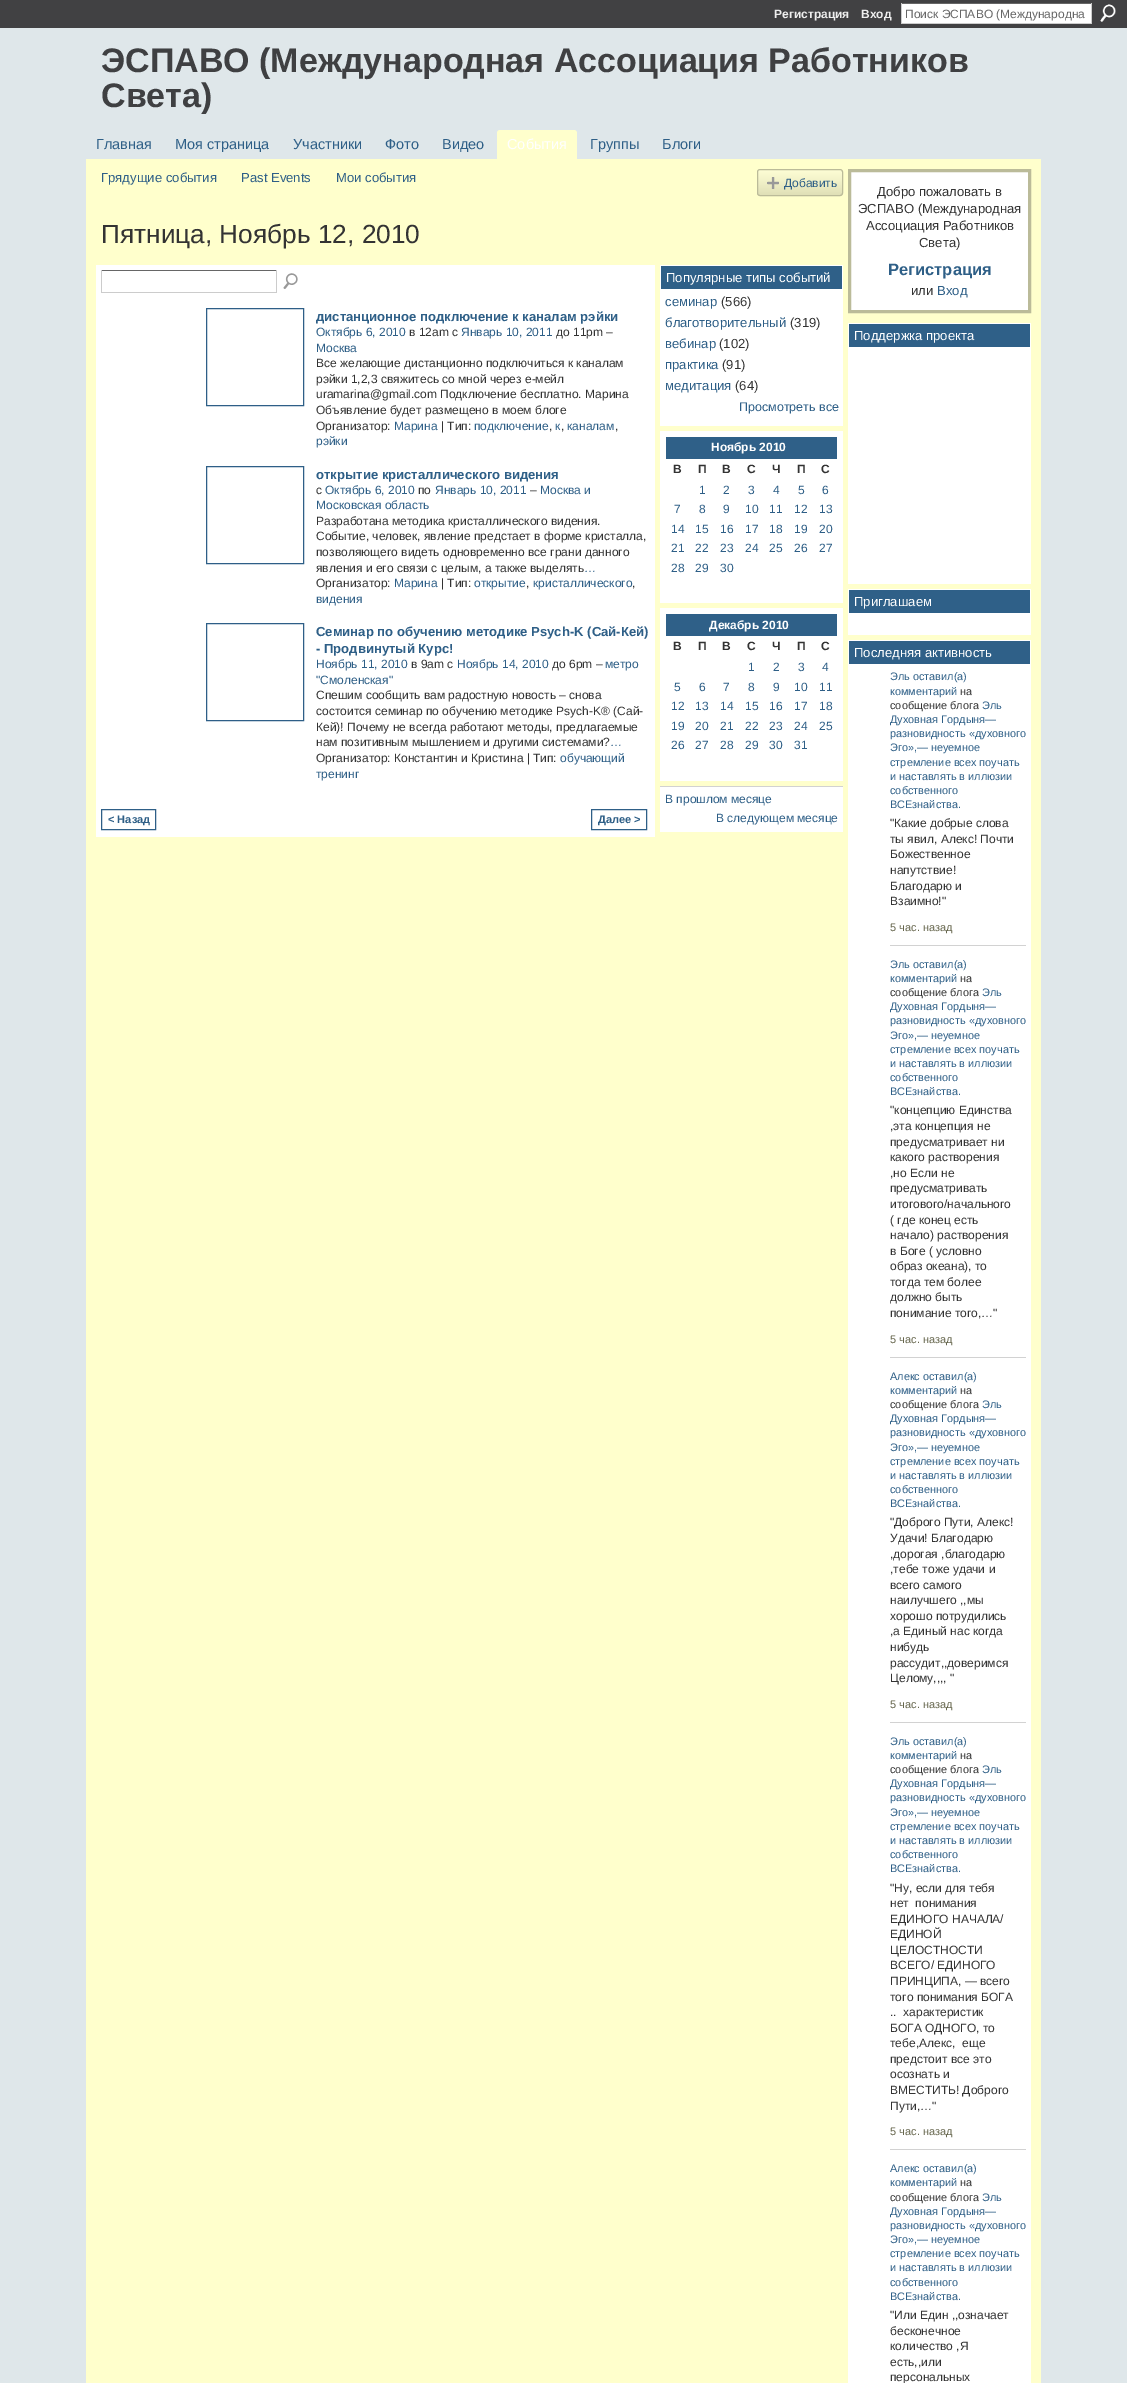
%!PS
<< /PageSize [1127 2383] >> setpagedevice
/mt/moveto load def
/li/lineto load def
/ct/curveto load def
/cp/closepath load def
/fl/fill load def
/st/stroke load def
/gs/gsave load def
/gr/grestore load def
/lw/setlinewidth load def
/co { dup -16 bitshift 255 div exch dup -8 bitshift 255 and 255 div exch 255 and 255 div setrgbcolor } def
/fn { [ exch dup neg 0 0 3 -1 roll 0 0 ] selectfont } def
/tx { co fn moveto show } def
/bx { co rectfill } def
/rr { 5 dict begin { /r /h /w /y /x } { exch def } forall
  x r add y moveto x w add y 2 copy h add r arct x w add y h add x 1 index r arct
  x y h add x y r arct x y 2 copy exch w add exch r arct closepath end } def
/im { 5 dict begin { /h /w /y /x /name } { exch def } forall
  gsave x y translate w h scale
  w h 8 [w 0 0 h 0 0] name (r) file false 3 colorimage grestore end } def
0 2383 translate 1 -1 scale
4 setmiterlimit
0 0 1127 2383 16#DFE7EA bx
0 0 1127 28 16#414143 bx
902 4 189 19 16#FFFFFF bx
901 3 191 1 16#666666 bx
1091 3 1 21 16#CCCCCC bx
901 23 191 1 16#CCCCCC bx
901 3 1 21 16#CCCCCC bx
(media/1.raw) 1100 4 16 18 im
16#FFFFCC co
500 130 mt 574 130 li 575.5 130 577 131.5 577 133 ct 577 159 li 497 159 li 497 133 li 497 131.5 498.5 130 500 130 ct cp fl
86 159 955 2224 16#FFFFCC bx
(media/2.raw) 757 170 86 26 im
16#BBBB99 co
757.5 169.5 85 26 2.5 rr st
(media/3.raw) 767 177 12 12 im
96 265 559 572 16#FFFFFF bx
101 270 176 1 16#666666 bx
276 270 1 23 16#CCCCCC bx
101 292 176 1 16#CCCCCC bx
101 270 1 23 16#CCCCCC bx
(media/4.raw) 283 273 15 16 im
16#2E5F87 co
206.5 308.5 97 97 rectstroke
206.5 466.5 97 97 rectstroke
206.5 623.5 97 97 rectstroke
101.5 809.5 54 20 rectstroke
591.5 809.5 55 20 rectstroke
661 266 181 23 16#2F6088 bx
660 265 183 1 16#FFFFFF bx
842 265 1 24 16#FFFFFF bx
660 265 1 24 16#FFFFFF bx
660 289 183 137 16#FFFFFF bx
660 431 183 172 16#FFFFFF bx
666 437 171 22 16#2F6088 bx
660 608 183 173 16#FFFFFF bx
666 614 171 22 16#2F6088 bx
660 787 183 45 16#FFFFFF bx
660 786 183 1 16#D2D2D2 bx
16#FFFFFF co
849.5 170.5 mt 1029.5 170.5 li 1029.5 311.5 li 849.5 311.5 li cp gs fl gr
16#BBBB99 co
3 lw
st
849 324 181 23 16#2F6088 bx
848 323 183 1 16#FFFFFF bx
1030 323 1 24 16#FFFFFF bx
848 323 1 24 16#FFFFFF bx
848 347 183 237 16#FFFFFF bx
849 590 181 23 16#2F6088 bx
848 589 183 1 16#FFFFFF bx
1030 589 1 24 16#FFFFFF bx
848 589 1 24 16#FFFFFF bx
848 613 183 22 16#FFFFFF bx
849 641 181 23 16#2F6088 bx
848 640 183 1 16#FFFFFF bx
1030 640 1 24 16#FFFFFF bx
848 640 1 24 16#FFFFFF bx
848 664 183 1719 16#FFFFFF bx
890 945 136 1 16#D2D2D2 bx
890 1357 136 1 16#D2D2D2 bx
890 1722 136 1 16#D2D2D2 bx
890 2149 136 1 16#D2D2D2 bx
(Регистрация) 774 18 /LiberationSans-Bold 12 16#EEEEEE tx
(Вход) 861 18 /LiberationSans-Bold 12 16#EEEEEE tx
(Поиск ЭСПАВО \(Международна) 905 18 /LiberationSans-Regular 12 16#666666 tx
(ЭСПАВО \(Международная Ассоциация Работников) 101 72 /LiberationSans-Bold 34 16#3F4042 tx
gs
86 28 955 86 rectclip
(Света\)) 101 107 /LiberationSans-Bold 34 16#3F4042 tx
gr
(Главная) 96 149 /LiberationSans-Regular 14.5 16#2E5F87 tx
(Моя страница) 175 149 /LiberationSans-Regular 14.5 16#2E5F87 tx
(Участники) 293 149 /LiberationSans-Regular 14.5 16#2E5F87 tx
(Фото) 385 149 /LiberationSans-Regular 14.5 16#2E5F87 tx
(Видео) 442 149 /LiberationSans-Regular 14.5 16#2E5F87 tx
(События) 507 149 /LiberationSans-Regular 14.5 16#FFFFFF tx
(Группы) 590 149 /LiberationSans-Regular 14.5 16#2E5F87 tx
(Блоги) 662 149 /LiberationSans-Regular 14.5 16#2E5F87 tx
(Грядущие события) 101 182 /LiberationSans-Regular 13.1 16#2E5F87 tx
(Past Events) 241 182 /LiberationSans-Regular 13.1 16#2E5F87 tx
(Мои события) 336 182 /LiberationSans-Regular 13.1 16#2E5F87 tx
(Добавить) 784 187 /LiberationSans-Regular 12 16#2E5F87 tx
(Пятница, Ноябрь 12, 2010) 101 243 /LiberationSans-Regular 26.25 16#333333 tx
(дистанционное подключение к каналам рэйки) 316 321 /LiberationSans-Bold 13.1 16#2E5F87 tx
(Октябрь 6, 2010) 316 336 /LiberationSans-Regular 12 16#2E5F87 tx
(в 12am с) 409 336 /LiberationSans-Regular 12 16#333333 tx
(Январь 10, 2011) 461 336 /LiberationSans-Regular 12 16#2E5F87 tx
(до 11pm –) 556 336 /LiberationSans-Regular 12 16#333333 tx
(Москва) 316 352 /LiberationSans-Regular 12 16#2E5F87 tx
(Все желающие дистанционно подключиться к каналам) 316 367 /LiberationSans-Regular 12 16#333333 tx
(рэйки 1,2,3 свяжитесь со мной через е-мейл) 316 383 /LiberationSans-Regular 12 16#333333 tx
(uramarina@gmail.com Подключение бесплатно. Марина) 316 398 /LiberationSans-Regular 12 16#333333 tx
(Объявление будет размещено в моем блоге) 316 414 /LiberationSans-Regular 12 16#333333 tx
(Организатор:) 316 430 /LiberationSans-Regular 12 16#333333 tx
(Марина) 394 430 /LiberationSans-Regular 12 16#2E5F87 tx
(| Тип:) 441 430 /LiberationSans-Regular 12 16#333333 tx
(подключение) 474 430 /LiberationSans-Regular 12 16#2E5F87 tx
(,) 549 430 /LiberationSans-Regular 12 16#333333 tx
(к) 555 430 /LiberationSans-Regular 12 16#2E5F87 tx
(,) 561 430 /LiberationSans-Regular 12 16#333333 tx
(каналам) 567 430 /LiberationSans-Regular 12 16#2E5F87 tx
(,) 615 430 /LiberationSans-Regular 12 16#333333 tx
(рэйки) 316 445 /LiberationSans-Regular 12 16#2E5F87 tx
(открытие кристаллического видения) 316 479 /LiberationSans-Bold 13.1 16#2E5F87 tx
(с) 316 494 /LiberationSans-Regular 12 16#333333 tx
(Октябрь 6, 2010) 325 494 /LiberationSans-Regular 12 16#2E5F87 tx
(по) 418 494 /LiberationSans-Regular 12 16#333333 tx
(Январь 10, 2011) 435 494 /LiberationSans-Regular 12 16#2E5F87 tx
(–) 530 494 /LiberationSans-Regular 12 16#333333 tx
(Москва и) 540 494 /LiberationSans-Regular 12 16#2E5F87 tx
(Московская область) 316 509 /LiberationSans-Regular 12 16#2E5F87 tx
(Разработана методика кристаллического видения.) 316 525 /LiberationSans-Regular 12 16#333333 tx
(Событие, человек, явление предстает в форме кристалла,) 316 540 /LiberationSans-Regular 12 16#333333 tx
(позволяющего видеть одновременно все грани данного) 316 556 /LiberationSans-Regular 12 16#333333 tx
(явления и его связи с целым, а также выделять) 316 572 /LiberationSans-Regular 12 16#333333 tx
(…) 584 572 /LiberationSans-Regular 12 16#2E5F87 tx
(Организатор:) 316 587 /LiberationSans-Regular 12 16#333333 tx
(Марина) 394 587 /LiberationSans-Regular 12 16#2E5F87 tx
(| Тип:) 441 587 /LiberationSans-Regular 12 16#333333 tx
(открытие) 474 587 /LiberationSans-Regular 12 16#2E5F87 tx
(,) 526 587 /LiberationSans-Regular 12 16#333333 tx
(кристаллического) 533 587 /LiberationSans-Regular 12 16#2E5F87 tx
(,) 632 587 /LiberationSans-Regular 12 16#333333 tx
(видения) 316 603 /LiberationSans-Regular 12 16#2E5F87 tx
(Семинар по обучению методике Psych-K \(Сай-Кей\)) 316 636 /LiberationSans-Bold 13.1 16#2E5F87 tx
(- Продвинутый Курс!) 316 653 /LiberationSans-Bold 13.1 16#2E5F87 tx
(Ноябрь 11, 2010) 316 668 /LiberationSans-Regular 12 16#2E5F87 tx
(в 9am с) 411 668 /LiberationSans-Regular 12 16#333333 tx
(Ноябрь 14, 2010) 457 668 /LiberationSans-Regular 12 16#2E5F87 tx
(до 6pm –) 552 668 /LiberationSans-Regular 12 16#333333 tx
(метро) 605 668 /LiberationSans-Regular 12 16#2E5F87 tx
("Смоленская") 316 684 /LiberationSans-Regular 12 16#2E5F87 tx
(Спешим сообщить вам радостную новость – снова) 316 699 /LiberationSans-Regular 12 16#333333 tx
(состоится семинар по обучению методике Psych-K® \(Сай-) 316 715 /LiberationSans-Regular 12 16#333333 tx
(Кей\)! Почему не всегда работают методы, предлагаемые) 316 731 /LiberationSans-Regular 12 16#333333 tx
(нам позитивным мышлением и другими системами?) 316 746 /LiberationSans-Regular 12 16#333333 tx
(…) 610 746 /LiberationSans-Regular 12 16#2E5F87 tx
(Организатор: Константин и Кристина | Тип:) 316 762 /LiberationSans-Regular 12 16#333333 tx
(обучающий) 560 762 /LiberationSans-Regular 12 16#2E5F87 tx
(тренинг) 316 778 /LiberationSans-Regular 12 16#2E5F87 tx
(< Назад) 108 823 /LiberationSans-Bold 11 16#2E5F87 tx
(Далее >) 598 823 /LiberationSans-Bold 11 16#2E5F87 tx
(Популярные типы событий) 666 282 /LiberationSans-Regular 13.1 16#FFFFFF tx
(семинар) 665 306 /LiberationSans-Regular 13.1 16#2E5F87 tx
(\(566\)) 721 306 /LiberationSans-Regular 13.1 16#333333 tx
(благотворительный) 665 327 /LiberationSans-Regular 13.1 16#2E5F87 tx
(\(319\)) 790 327 /LiberationSans-Regular 13.1 16#333333 tx
(вебинар) 665 348 /LiberationSans-Regular 13.1 16#2E5F87 tx
(\(102\)) 719 348 /LiberationSans-Regular 13.1 16#333333 tx
(практика) 665 369 /LiberationSans-Regular 13.1 16#2E5F87 tx
(\(91\)) 722 369 /LiberationSans-Regular 13.1 16#333333 tx
(медитация) 665 390 /LiberationSans-Regular 13.1 16#2E5F87 tx
(\(64\)) 735 390 /LiberationSans-Regular 13.1 16#333333 tx
(Просмотреть все) 739 411 /LiberationSans-Regular 12.5 16#2E5F87 tx
(Ноябрь 2010) 711 451 /LiberationSans-Bold 12 16#FFFFFF tx
(В) 673 473 /LiberationSans-Bold 12 16#333333 tx
(П) 698 473 /LiberationSans-Bold 12 16#333333 tx
(В) 722 473 /LiberationSans-Bold 12 16#333333 tx
(С) 747 473 /LiberationSans-Bold 12 16#333333 tx
(Ч) 772 473 /LiberationSans-Bold 12 16#333333 tx
(П) 797 473 /LiberationSans-Bold 12 16#333333 tx
(С) 821 473 /LiberationSans-Bold 12 16#333333 tx
(1) 699 494 /LiberationSans-Regular 12 16#2E5F87 tx
(2) 723 494 /LiberationSans-Regular 12 16#2E5F87 tx
(3) 748 494 /LiberationSans-Regular 12 16#2E5F87 tx
(4) 773 494 /LiberationSans-Regular 12 16#2E5F87 tx
(5) 798 494 /LiberationSans-Regular 12 16#2E5F87 tx
(6) 822 494 /LiberationSans-Regular 12 16#2E5F87 tx
(7) 674 513 /LiberationSans-Regular 12 16#2E5F87 tx
(8) 699 513 /LiberationSans-Regular 12 16#2E5F87 tx
(9) 723 513 /LiberationSans-Regular 12 16#2E5F87 tx
(10) 745 513 /LiberationSans-Regular 12 16#2E5F87 tx
(11) 769 513 /LiberationSans-Regular 12 16#2E5F87 tx
(12) 794 513 /LiberationSans-Regular 12 16#2E5F87 tx
(13) 819 513 /LiberationSans-Regular 12 16#2E5F87 tx
(14) 671 533 /LiberationSans-Regular 12 16#2E5F87 tx
(15) 695 533 /LiberationSans-Regular 12 16#2E5F87 tx
(16) 720 533 /LiberationSans-Regular 12 16#2E5F87 tx
(17) 745 533 /LiberationSans-Regular 12 16#2E5F87 tx
(18) 769 533 /LiberationSans-Regular 12 16#2E5F87 tx
(19) 794 533 /LiberationSans-Regular 12 16#2E5F87 tx
(20) 819 533 /LiberationSans-Regular 12 16#2E5F87 tx
(21) 671 552 /LiberationSans-Regular 12 16#2E5F87 tx
(22) 695 552 /LiberationSans-Regular 12 16#2E5F87 tx
(23) 720 552 /LiberationSans-Regular 12 16#2E5F87 tx
(24) 745 552 /LiberationSans-Regular 12 16#2E5F87 tx
(25) 769 552 /LiberationSans-Regular 12 16#2E5F87 tx
(26) 794 552 /LiberationSans-Regular 12 16#2E5F87 tx
(27) 819 552 /LiberationSans-Regular 12 16#2E5F87 tx
(28) 671 572 /LiberationSans-Regular 12 16#2E5F87 tx
(29) 695 572 /LiberationSans-Regular 12 16#2E5F87 tx
(30) 720 572 /LiberationSans-Regular 12 16#2E5F87 tx
(Декабрь 2010) 709 629 /LiberationSans-Bold 12 16#FFFFFF tx
(В) 673 650 /LiberationSans-Bold 12 16#333333 tx
(П) 698 650 /LiberationSans-Bold 12 16#333333 tx
(В) 722 650 /LiberationSans-Bold 12 16#333333 tx
(С) 747 650 /LiberationSans-Bold 12 16#333333 tx
(Ч) 772 650 /LiberationSans-Bold 12 16#333333 tx
(П) 797 650 /LiberationSans-Bold 12 16#333333 tx
(С) 821 650 /LiberationSans-Bold 12 16#333333 tx
(1) 748 671 /LiberationSans-Regular 12 16#2E5F87 tx
(2) 773 671 /LiberationSans-Regular 12 16#2E5F87 tx
(3) 798 671 /LiberationSans-Regular 12 16#2E5F87 tx
(4) 822 671 /LiberationSans-Regular 12 16#2E5F87 tx
(5) 674 691 /LiberationSans-Regular 12 16#2E5F87 tx
(6) 699 691 /LiberationSans-Regular 12 16#2E5F87 tx
(7) 723 691 /LiberationSans-Regular 12 16#2E5F87 tx
(8) 748 691 /LiberationSans-Regular 12 16#2E5F87 tx
(9) 773 691 /LiberationSans-Regular 12 16#2E5F87 tx
(10) 794 691 /LiberationSans-Regular 12 16#2E5F87 tx
(11) 819 691 /LiberationSans-Regular 12 16#2E5F87 tx
(12) 671 710 /LiberationSans-Regular 12 16#2E5F87 tx
(13) 695 710 /LiberationSans-Regular 12 16#2E5F87 tx
(14) 720 710 /LiberationSans-Regular 12 16#2E5F87 tx
(15) 745 710 /LiberationSans-Regular 12 16#2E5F87 tx
(16) 769 710 /LiberationSans-Regular 12 16#2E5F87 tx
(17) 794 710 /LiberationSans-Regular 12 16#2E5F87 tx
(18) 819 710 /LiberationSans-Regular 12 16#2E5F87 tx
(19) 671 730 /LiberationSans-Regular 12 16#2E5F87 tx
(20) 695 730 /LiberationSans-Regular 12 16#2E5F87 tx
(21) 720 730 /LiberationSans-Regular 12 16#2E5F87 tx
(22) 745 730 /LiberationSans-Regular 12 16#2E5F87 tx
(23) 769 730 /LiberationSans-Regular 12 16#2E5F87 tx
(24) 794 730 /LiberationSans-Regular 12 16#2E5F87 tx
(25) 819 730 /LiberationSans-Regular 12 16#2E5F87 tx
(26) 671 749 /LiberationSans-Regular 12 16#2E5F87 tx
(27) 695 749 /LiberationSans-Regular 12 16#2E5F87 tx
(28) 720 749 /LiberationSans-Regular 12 16#2E5F87 tx
(29) 745 749 /LiberationSans-Regular 12 16#2E5F87 tx
(30) 769 749 /LiberationSans-Regular 12 16#2E5F87 tx
(31) 794 749 /LiberationSans-Regular 12 16#2E5F87 tx
(В прошлом месяце) 665 803 /LiberationSans-Regular 12 16#2E5F87 tx
(В следующем месяце) 716 822 /LiberationSans-Regular 12 16#2E5F87 tx
(Добро пожаловать в) 877 196 /LiberationSans-Regular 13.1 16#333333 tx
(ЭСПАВО \(Международная) 858 213 /LiberationSans-Regular 13.1 16#333333 tx
(Ассоциация Работников) 866 230 /LiberationSans-Regular 13.1 16#333333 tx
(Света\)) 919 247 /LiberationSans-Regular 13.1 16#333333 tx
(Регистрация) 888 275 /LiberationSans-Bold 16.5 16#2E5F87 tx
(или) 911 295 /LiberationSans-Regular 13.1 16#333333 tx
(Вход) 937 295 /LiberationSans-Regular 13.1 16#2E5F87 tx
(Поддержка проекта) 854 340 /LiberationSans-Regular 13.1 16#FFFFFF tx
(Приглашаем) 854 606 /LiberationSans-Regular 13.1 16#FFFFFF tx
(Последняя активность) 854 657 /LiberationSans-Regular 13.1 16#FFFFFF tx
(Эль оставил\(а\)) 890 680 /LiberationSans-Regular 10.9 16#2E5F87 tx
(комментарий) 890 695 /LiberationSans-Regular 10.9 16#2E5F87 tx
(на) 960 695 /LiberationSans-Regular 10.9 16#333333 tx
(сообщение блога) 890 709 /LiberationSans-Regular 10.9 16#333333 tx
(Эль) 982 709 /LiberationSans-Regular 10.9 16#2E5F87 tx
(Духовная Гордыня—) 890 723 /LiberationSans-Regular 10.9 16#2E5F87 tx
(разновидность «духовного) 890 737 /LiberationSans-Regular 10.9 16#2E5F87 tx
(Эго»,— неуемное) 890 751 /LiberationSans-Regular 10.9 16#2E5F87 tx
(стремление всех поучать) 890 766 /LiberationSans-Regular 10.9 16#2E5F87 tx
(и наставлять в иллюзии) 890 780 /LiberationSans-Regular 10.9 16#2E5F87 tx
(собственного) 890 794 /LiberationSans-Regular 10.9 16#2E5F87 tx
(ВСЕзнайства.) 890 808 /LiberationSans-Regular 10.9 16#2E5F87 tx
("Какие добрые слова) 890 827 /LiberationSans-Regular 12 16#333333 tx
(ты явил, Алекс! Почти) 890 843 /LiberationSans-Regular 12 16#333333 tx
(Божественное) 890 858 /LiberationSans-Regular 12 16#333333 tx
(напутствие!) 890 874 /LiberationSans-Regular 12 16#333333 tx
(Благодарю и) 890 890 /LiberationSans-Regular 12 16#333333 tx
(Взаимно!") 890 905 /LiberationSans-Regular 12 16#333333 tx
(5 час. назад) 890 931 /LiberationSans-Regular 11 16#66664D tx
(Эль оставил\(а\)) 890 968 /LiberationSans-Regular 10.9 16#2E5F87 tx
(комментарий) 890 982 /LiberationSans-Regular 10.9 16#2E5F87 tx
(на) 960 982 /LiberationSans-Regular 10.9 16#333333 tx
(сообщение блога) 890 996 /LiberationSans-Regular 10.9 16#333333 tx
(Эль) 982 996 /LiberationSans-Regular 10.9 16#2E5F87 tx
(Духовная Гордыня—) 890 1010 /LiberationSans-Regular 10.9 16#2E5F87 tx
(разновидность «духовного) 890 1024 /LiberationSans-Regular 10.9 16#2E5F87 tx
(Эго»,— неуемное) 890 1039 /LiberationSans-Regular 10.9 16#2E5F87 tx
(стремление всех поучать) 890 1053 /LiberationSans-Regular 10.9 16#2E5F87 tx
(и наставлять в иллюзии) 890 1067 /LiberationSans-Regular 10.9 16#2E5F87 tx
(собственного) 890 1081 /LiberationSans-Regular 10.9 16#2E5F87 tx
(ВСЕзнайства.) 890 1095 /LiberationSans-Regular 10.9 16#2E5F87 tx
("концепцию Единства) 890 1114 /LiberationSans-Regular 12 16#333333 tx
(,эта концепция не) 890 1130 /LiberationSans-Regular 12 16#333333 tx
(предусматривает ни) 890 1146 /LiberationSans-Regular 12 16#333333 tx
(какого растворения) 890 1161 /LiberationSans-Regular 12 16#333333 tx
(,но Если не) 890 1177 /LiberationSans-Regular 12 16#333333 tx
(предусматривать) 890 1192 /LiberationSans-Regular 12 16#333333 tx
(итогового/начального) 890 1208 /LiberationSans-Regular 12 16#333333 tx
(\( где конец есть) 890 1224 /LiberationSans-Regular 12 16#333333 tx
(начало\) растворения) 890 1239 /LiberationSans-Regular 12 16#333333 tx
(в Боге \( условно) 890 1255 /LiberationSans-Regular 12 16#333333 tx
(образ океана\), то) 890 1270 /LiberationSans-Regular 12 16#333333 tx
(тогда тем более) 890 1286 /LiberationSans-Regular 12 16#333333 tx
(должно быть) 890 1301 /LiberationSans-Regular 12 16#333333 tx
(понимание того,…") 890 1317 /LiberationSans-Regular 12 16#333333 tx
(5 час. назад) 890 1343 /LiberationSans-Regular 11 16#66664D tx
(Алекс оставил\(а\)) 890 1380 /LiberationSans-Regular 10.9 16#2E5F87 tx
(комментарий) 890 1394 /LiberationSans-Regular 10.9 16#2E5F87 tx
(на) 960 1394 /LiberationSans-Regular 10.9 16#333333 tx
(сообщение блога) 890 1408 /LiberationSans-Regular 10.9 16#333333 tx
(Эль) 982 1408 /LiberationSans-Regular 10.9 16#2E5F87 tx
(Духовная Гордыня—) 890 1422 /LiberationSans-Regular 10.9 16#2E5F87 tx
(разновидность «духовного) 890 1436 /LiberationSans-Regular 10.9 16#2E5F87 tx
(Эго»,— неуемное) 890 1451 /LiberationSans-Regular 10.9 16#2E5F87 tx
(стремление всех поучать) 890 1465 /LiberationSans-Regular 10.9 16#2E5F87 tx
(и наставлять в иллюзии) 890 1479 /LiberationSans-Regular 10.9 16#2E5F87 tx
(собственного) 890 1493 /LiberationSans-Regular 10.9 16#2E5F87 tx
(ВСЕзнайства.) 890 1507 /LiberationSans-Regular 10.9 16#2E5F87 tx
("Доброго Пути, Алекс!) 890 1526 /LiberationSans-Regular 12 16#333333 tx
(Удачи! Благодарю) 890 1542 /LiberationSans-Regular 12 16#333333 tx
(,дорогая ,благодарю) 890 1558 /LiberationSans-Regular 12 16#333333 tx
(,тебе тоже удачи и) 890 1573 /LiberationSans-Regular 12 16#333333 tx
(всего самого) 890 1589 /LiberationSans-Regular 12 16#333333 tx
(наилучшего ,,мы) 890 1604 /LiberationSans-Regular 12 16#333333 tx
(хорошо потрудились) 890 1620 /LiberationSans-Regular 12 16#333333 tx
(,а Единый нас когда) 890 1635 /LiberationSans-Regular 12 16#333333 tx
(нибудь) 890 1651 /LiberationSans-Regular 12 16#333333 tx
(рассудит,,доверимся) 890 1667 /LiberationSans-Regular 12 16#333333 tx
(Целому,,,, ") 890 1682 /LiberationSans-Regular 12 16#333333 tx
(5 час. назад) 890 1708 /LiberationSans-Regular 11 16#66664D tx
(Эль оставил\(а\)) 890 1745 /LiberationSans-Regular 10.9 16#2E5F87 tx
(комментарий) 890 1759 /LiberationSans-Regular 10.9 16#2E5F87 tx
(на) 960 1759 /LiberationSans-Regular 10.9 16#333333 tx
(сообщение блога) 890 1773 /LiberationSans-Regular 10.9 16#333333 tx
(Эль) 982 1773 /LiberationSans-Regular 10.9 16#2E5F87 tx
(Духовная Гордыня—) 890 1787 /LiberationSans-Regular 10.9 16#2E5F87 tx
(разновидность «духовного) 890 1801 /LiberationSans-Regular 10.9 16#2E5F87 tx
(Эго»,— неуемное) 890 1816 /LiberationSans-Regular 10.9 16#2E5F87 tx
(стремление всех поучать) 890 1830 /LiberationSans-Regular 10.9 16#2E5F87 tx
(и наставлять в иллюзии) 890 1844 /LiberationSans-Regular 10.9 16#2E5F87 tx
(собственного) 890 1858 /LiberationSans-Regular 10.9 16#2E5F87 tx
(ВСЕзнайства.) 890 1872 /LiberationSans-Regular 10.9 16#2E5F87 tx
("Ну, если для тебя) 890 1892 /LiberationSans-Regular 12 16#333333 tx
(нет  понимания) 890 1907 /LiberationSans-Regular 12 16#333333 tx
(ЕДИНОГО НАЧАЛА/) 890 1923 /LiberationSans-Regular 12 16#333333 tx
(ЕДИНОЙ) 890 1938 /LiberationSans-Regular 12 16#333333 tx
(ЦЕЛОСТНОСТИ) 890 1954 /LiberationSans-Regular 12 16#333333 tx
(ВСЕГО/ ЕДИНОГО) 890 1969 /LiberationSans-Regular 12 16#333333 tx
(ПРИНЦИПА, — всего) 890 1985 /LiberationSans-Regular 12 16#333333 tx
(того понимания БОГА) 890 2001 /LiberationSans-Regular 12 16#333333 tx
(..  характеристик) 890 2016 /LiberationSans-Regular 12 16#333333 tx
(БОГА ОДНОГО, то) 890 2032 /LiberationSans-Regular 12 16#333333 tx
(тебе,Алекс,  еще) 890 2047 /LiberationSans-Regular 12 16#333333 tx
(предстоит все это) 890 2063 /LiberationSans-Regular 12 16#333333 tx
(осознать и) 890 2078 /LiberationSans-Regular 12 16#333333 tx
(ВМЕСТИТЬ! Доброго) 890 2094 /LiberationSans-Regular 12 16#333333 tx
(Пути,…") 890 2110 /LiberationSans-Regular 12 16#333333 tx
(5 час. назад) 890 2135 /LiberationSans-Regular 11 16#66664D tx
(Алекс оставил\(а\)) 890 2172 /LiberationSans-Regular 10.9 16#2E5F87 tx
(комментарий) 890 2186 /LiberationSans-Regular 10.9 16#2E5F87 tx
(на) 960 2186 /LiberationSans-Regular 10.9 16#333333 tx
(сообщение блога) 890 2201 /LiberationSans-Regular 10.9 16#333333 tx
(Эль) 982 2201 /LiberationSans-Regular 10.9 16#2E5F87 tx
(Духовная Гордыня—) 890 2215 /LiberationSans-Regular 10.9 16#2E5F87 tx
(разновидность «духовного) 890 2229 /LiberationSans-Regular 10.9 16#2E5F87 tx
(Эго»,— неуемное) 890 2243 /LiberationSans-Regular 10.9 16#2E5F87 tx
(стремление всех поучать) 890 2257 /LiberationSans-Regular 10.9 16#2E5F87 tx
(и наставлять в иллюзии) 890 2271 /LiberationSans-Regular 10.9 16#2E5F87 tx
(собственного) 890 2286 /LiberationSans-Regular 10.9 16#2E5F87 tx
(ВСЕзнайства.) 890 2300 /LiberationSans-Regular 10.9 16#2E5F87 tx
("Или Един ,,означает) 890 2319 /LiberationSans-Regular 12 16#333333 tx
(бесконечное) 890 2335 /LiberationSans-Regular 12 16#333333 tx
(количество ,Я) 890 2350 /LiberationSans-Regular 12 16#333333 tx
(есть,,или) 890 2366 /LiberationSans-Regular 12 16#333333 tx
(персональных) 890 2381 /LiberationSans-Regular 12 16#333333 tx
showpage
